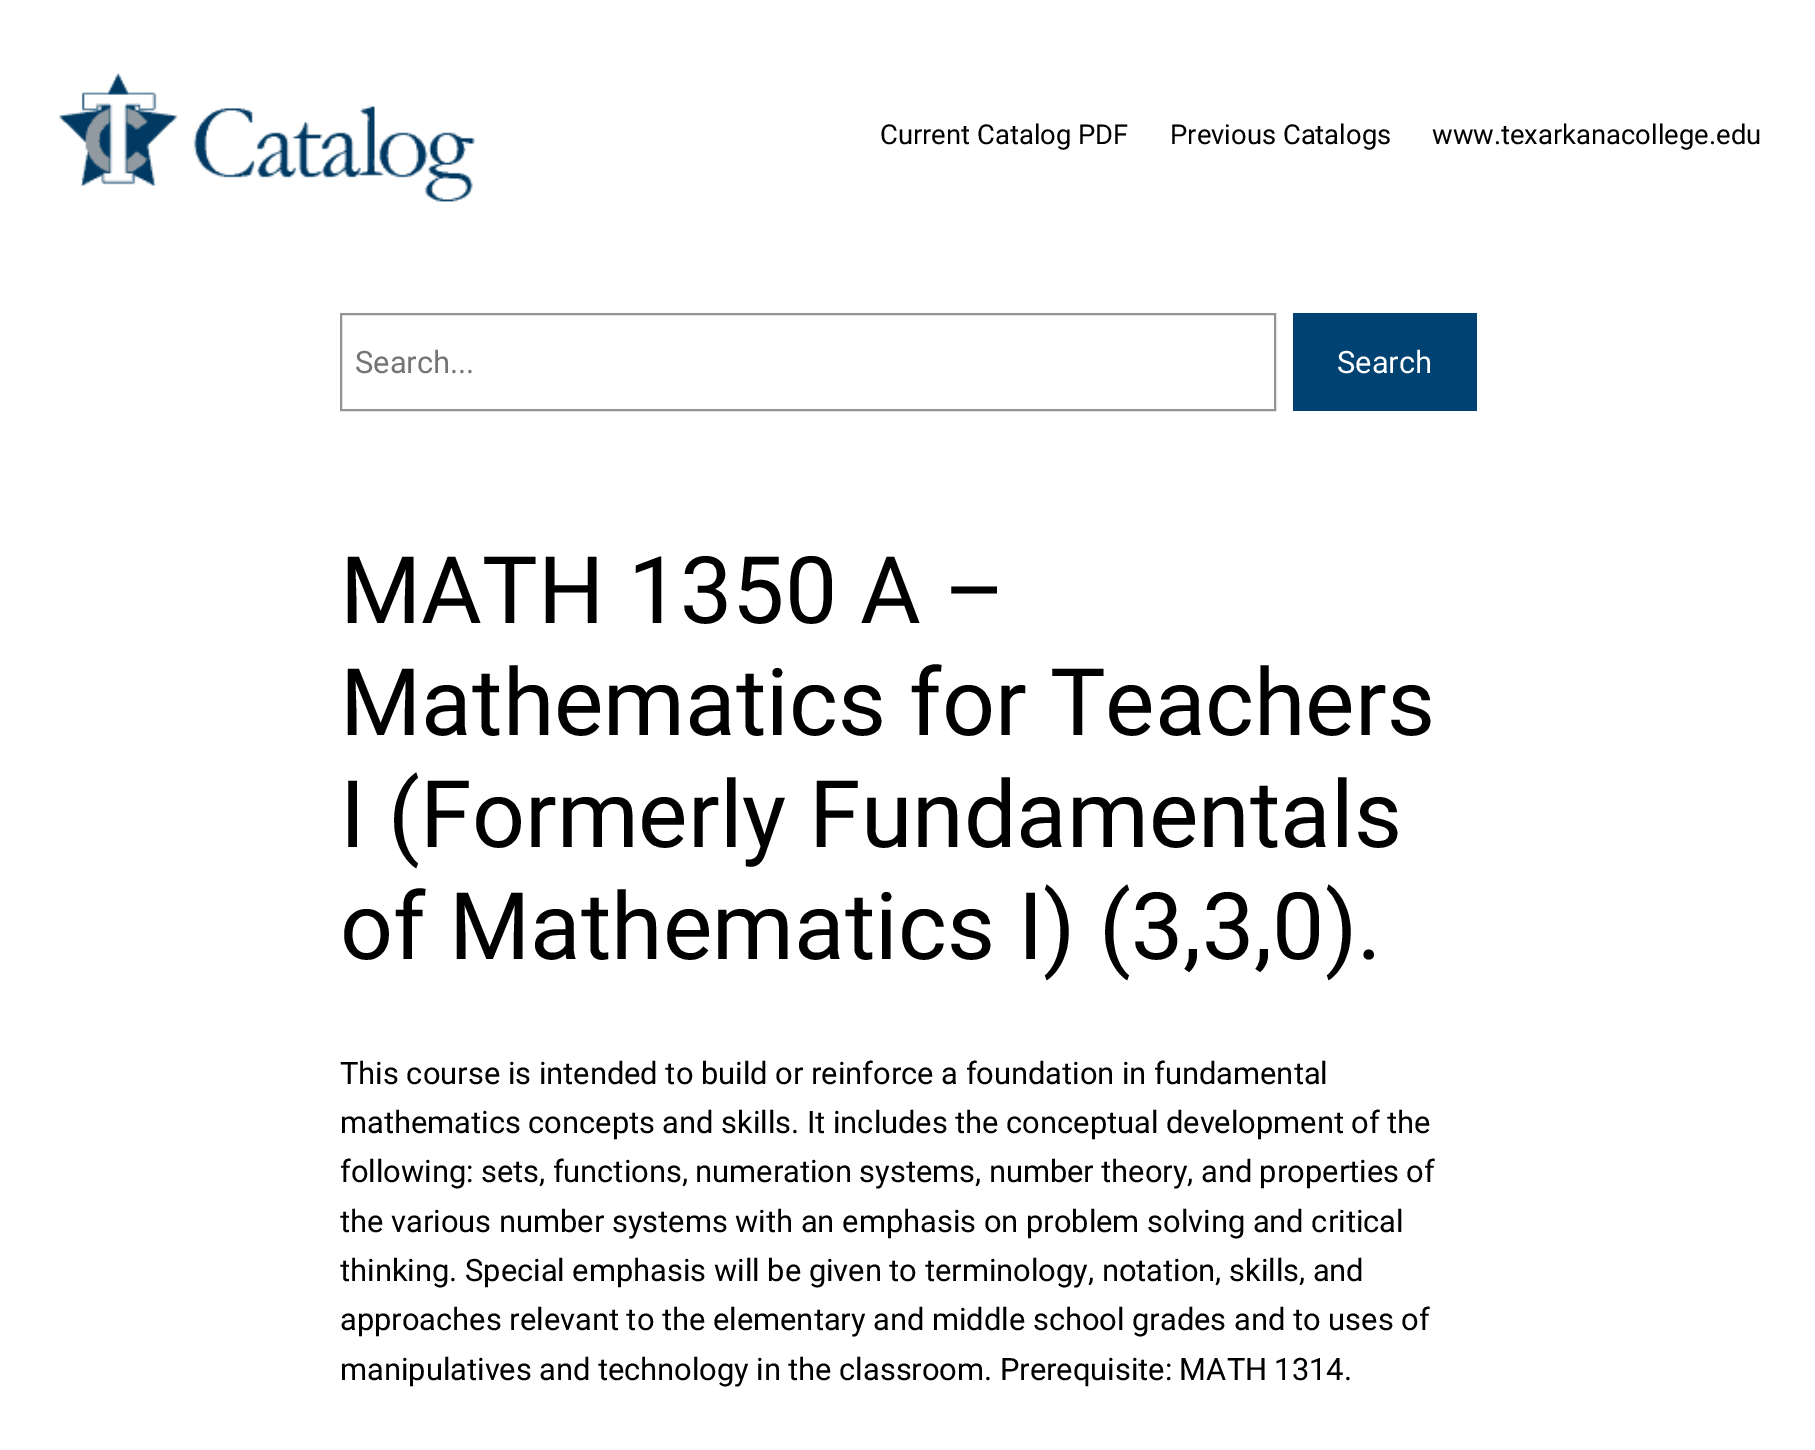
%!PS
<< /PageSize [1815 1450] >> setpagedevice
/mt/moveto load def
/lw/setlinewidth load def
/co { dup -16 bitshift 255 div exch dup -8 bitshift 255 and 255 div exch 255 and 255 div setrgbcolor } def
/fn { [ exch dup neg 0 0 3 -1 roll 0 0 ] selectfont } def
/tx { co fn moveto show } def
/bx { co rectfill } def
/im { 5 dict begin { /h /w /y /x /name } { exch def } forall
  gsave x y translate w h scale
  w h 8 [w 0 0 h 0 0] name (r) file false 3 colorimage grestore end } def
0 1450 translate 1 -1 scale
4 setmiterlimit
0 0 1815 1450 16#FFFFFF bx
(media/1.raw) 59 73 416 129 im
16#949494 co
2 lw
341 314 934 96 rectstroke
1293 313 184 98 16#004271 bx
(Current Catalog PDF) 880 144 /Roboto-Regular 27.4 16#000000 tx
(Previous Catalogs) 1170 144 /Roboto-Regular 27.4 16#000000 tx
(www.texarkanacollege.edu) 1432 144 /Roboto-Regular 27.4 16#000000 tx
(Search...) 355 373 /Roboto-Regular 30.85 16#757575 tx
(Search) 1337 373 /Roboto-Regular 30.85 16#FFFFFF tx
(MATH 1350 A –) 340 623 /Roboto-Regular 93.25 16#000000 tx
(Mathematics for Teachers) 340 735 /Roboto-Regular 93.25 16#000000 tx
(I \(Formerly Fundamentals) 340 847 /Roboto-Regular 93.25 16#000000 tx
(of Mathematics I\) \(3,3,0\).) 340 959 /Roboto-Regular 93.25 16#000000 tx
(This course is intended to build or reinforce a foundation in fundamental) 340 1084 /Roboto-Regular 30.85 16#000000 tx
340 1133 mt -.1 0 32 (mathematics concepts and skills. It includes the conceptual development of the) widthshow
340 1182 mt -.25 0 32 (following: sets, functions, numeration systems, number theory, and properties of) widthshow
(the various number systems with an emphasis on problem solving and critical) 340 1232 /Roboto-Regular 30.85 16#000000 tx
(thinking. Special emphasis will be given to terminology, notation, skills, and) 340 1281 /Roboto-Regular 30.85 16#000000 tx
(approaches relevant to the elementary and middle school grades and to uses of) 340 1330 /Roboto-Regular 30.85 16#000000 tx
340 1380 mt -.25 0 32 (manipulatives and technology in the classroom. Prerequisite: MATH 1314.) widthshow
showpage
